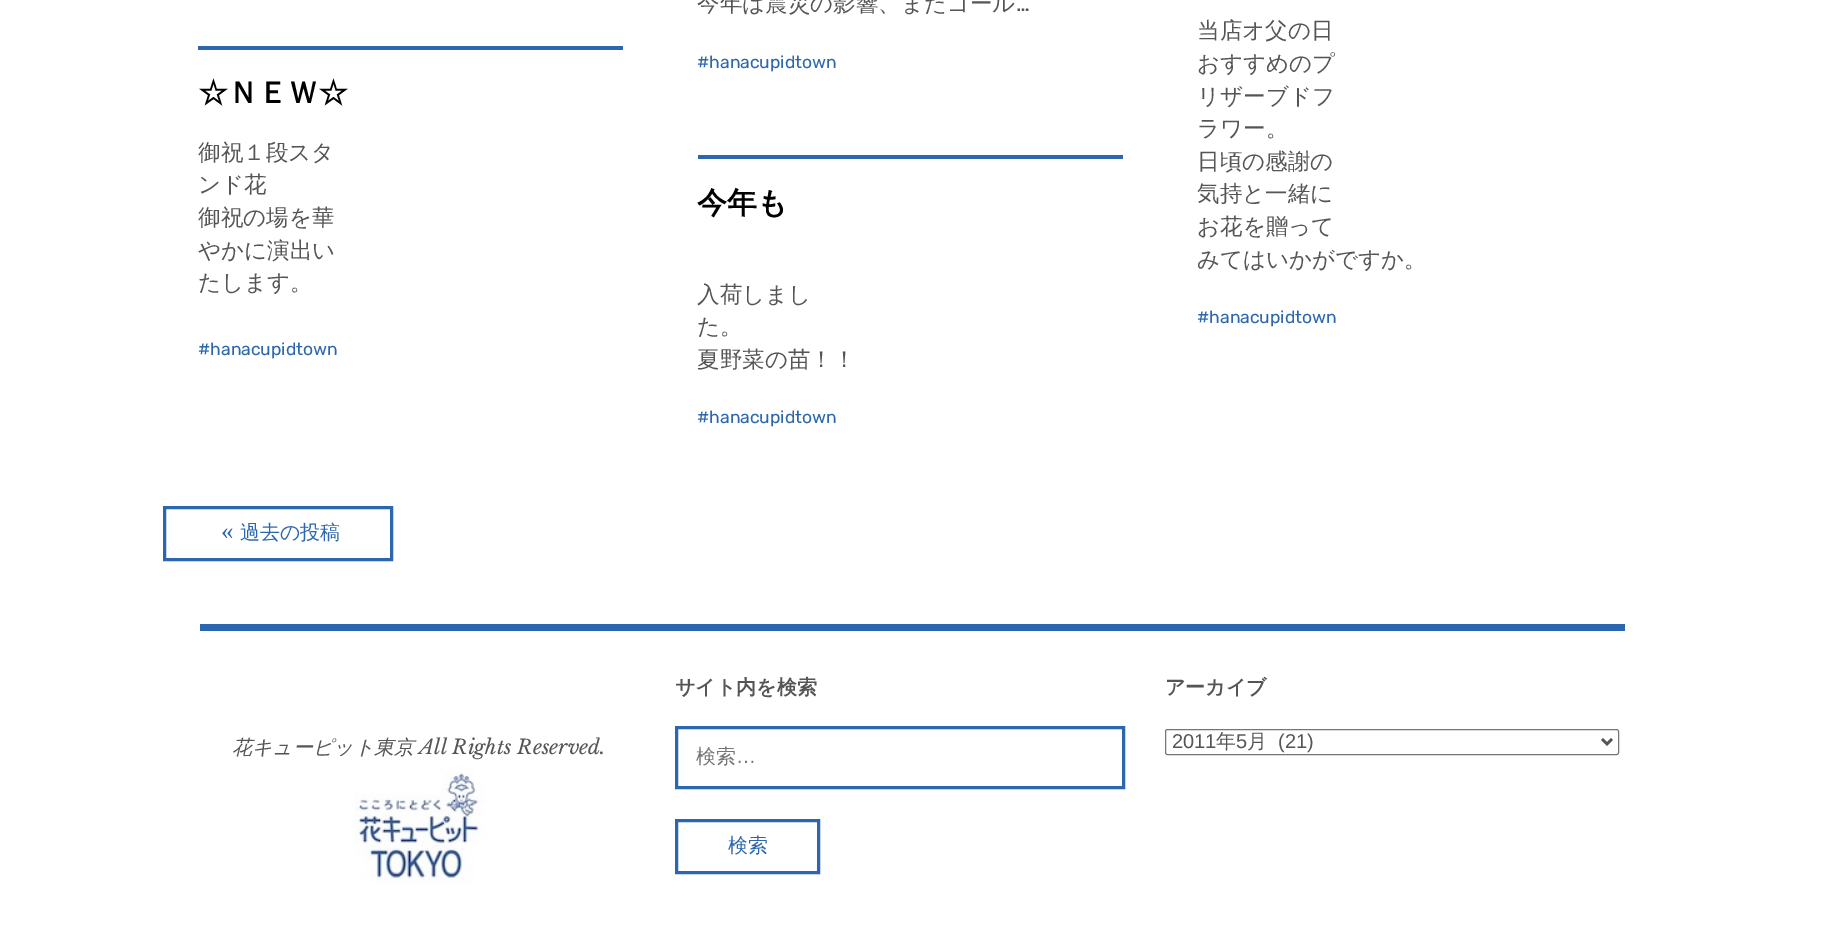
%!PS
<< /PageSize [1824 944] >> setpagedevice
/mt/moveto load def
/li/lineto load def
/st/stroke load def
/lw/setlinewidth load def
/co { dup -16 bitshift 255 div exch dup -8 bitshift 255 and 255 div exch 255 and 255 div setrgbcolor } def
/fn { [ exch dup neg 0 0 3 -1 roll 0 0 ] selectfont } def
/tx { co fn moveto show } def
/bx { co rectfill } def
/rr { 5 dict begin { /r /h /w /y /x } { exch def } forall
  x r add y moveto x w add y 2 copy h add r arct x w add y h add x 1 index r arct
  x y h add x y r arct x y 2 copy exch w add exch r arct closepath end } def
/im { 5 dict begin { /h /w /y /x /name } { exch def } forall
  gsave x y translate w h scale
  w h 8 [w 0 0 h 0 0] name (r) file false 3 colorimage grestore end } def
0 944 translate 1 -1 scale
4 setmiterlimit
0 0 1824 944 16#FFFFFF bx
198 46 425 4 16#2C66AE bx
698 155 425 4 16#2C66AE bx
3 lw
164.5 507.5 227 52 rectstroke
200 624 1425 7 16#2C66AE bx
(media/1.raw) 354 764 135 121 im
676.5 727.5 447 60 rectstroke
676.5 820.5 142 52 rectstroke
16#767676 co
1 lw
1165.5 729.5 453 25 2 rr st
16#555555 co
2.5 lw
1602 739 mt 1607 744 li 1612 739 li st
(☆ＮＥＷ☆) 198 103 /WenQuanYiZenHei-Bold 30 16#000000 tx
(御祝１段スタ) 198 160 /WenQuanYiZenHei-Medium 22.5 16#555555 tx
(ンド花) 198 192 /WenQuanYiZenHei-Medium 22.5 16#555555 tx
(御祝の場を華) 198 225 /WenQuanYiZenHei-Medium 22.5 16#555555 tx
(やかに演出い) 198 258 /WenQuanYiZenHei-Medium 22.5 16#555555 tx
(たします。) 198 290 /WenQuanYiZenHei-Medium 22.5 16#555555 tx
(#hanacupidtown) 198 355 /Rubik-Regular 17.5 16#2C66AE tx
(今年は震災の影響、またゴール) 697 11 /WenQuanYiZenHei-Medium 22.5 16#555555 tx
(…) 1016 11 /Rubik-Regular 22.5 16#555555 tx
(#hanacupidtown) 697 68 /Rubik-Regular 17.5 16#2C66AE tx
(当店オ父の日) 1197 38 /WenQuanYiZenHei-Medium 22.5 16#555555 tx
(おすすめのプ) 1197 71 /WenQuanYiZenHei-Medium 22.5 16#555555 tx
(リザーブドフ) 1197 104 /WenQuanYiZenHei-Medium 22.5 16#555555 tx
(ラワー。) 1197 136 /WenQuanYiZenHei-Medium 22.5 16#555555 tx
(日頃の感謝の) 1197 169 /WenQuanYiZenHei-Medium 22.5 16#555555 tx
(気持と一緒に) 1197 201 /WenQuanYiZenHei-Medium 22.5 16#555555 tx
(お花を贈って) 1197 234 /WenQuanYiZenHei-Medium 22.5 16#555555 tx
(みてはいかがですか。) 1197 267 /WenQuanYiZenHei-Medium 22.5 16#555555 tx
(#hanacupidtown) 1197 323 /Rubik-Regular 17.5 16#2C66AE tx
(今年も) 697 213 /WenQuanYiZenHei-Bold 30 16#000000 tx
(入荷しまし) 697 302 /WenQuanYiZenHei-Medium 22.5 16#555555 tx
(た。) 697 334 /WenQuanYiZenHei-Medium 22.5 16#555555 tx
(夏野菜の苗！！) 697 367 /WenQuanYiZenHei-Medium 22.5 16#555555 tx
(#hanacupidtown) 697 423 /Rubik-Regular 17.5 16#2C66AE tx
(«) 221 539 /LiberationSerif-Regular 25 16#2C66AE tx
(過去の投稿) 240 539 /WenQuanYiZenHei-Medium 20 16#2C66AE tx
(花キューピット東京) 232 754 /WenQuanYiZenHei-MediumItalic 20 16#555555 tx
(All Rights Reserved.) 419 754 /LibreBaskerville-Italic 20 16#555555 tx
(サイト内を検索) 675 694 /WenQuanYiZenHei-Bold 20 16#555555 tx
(検索) 696 763 /WenQuanYiZenHei-Medium 20 16#757575 tx
(…) 736 763 /LiberationSans-Regular 20 16#757575 tx
(検索) 728 852 /WenQuanYiZenHei-Medium 20 16#2C66AE tx
(アーカイブ) 1165 694 /WenQuanYiZenHei-Bold 20 16#555555 tx
(2011) 1172 748 /LiberationSans-Regular 20 16#555555 tx
(年) 1216 748 /WenQuanYiZenHei-Medium 20 16#555555 tx
(5) 1236 748 /LiberationSans-Regular 20 16#555555 tx
(月) 1247 748 /WenQuanYiZenHei-Medium 20 16#555555 tx
(\(21\)) 1278 748 /LiberationSans-Regular 20 16#555555 tx
showpage
